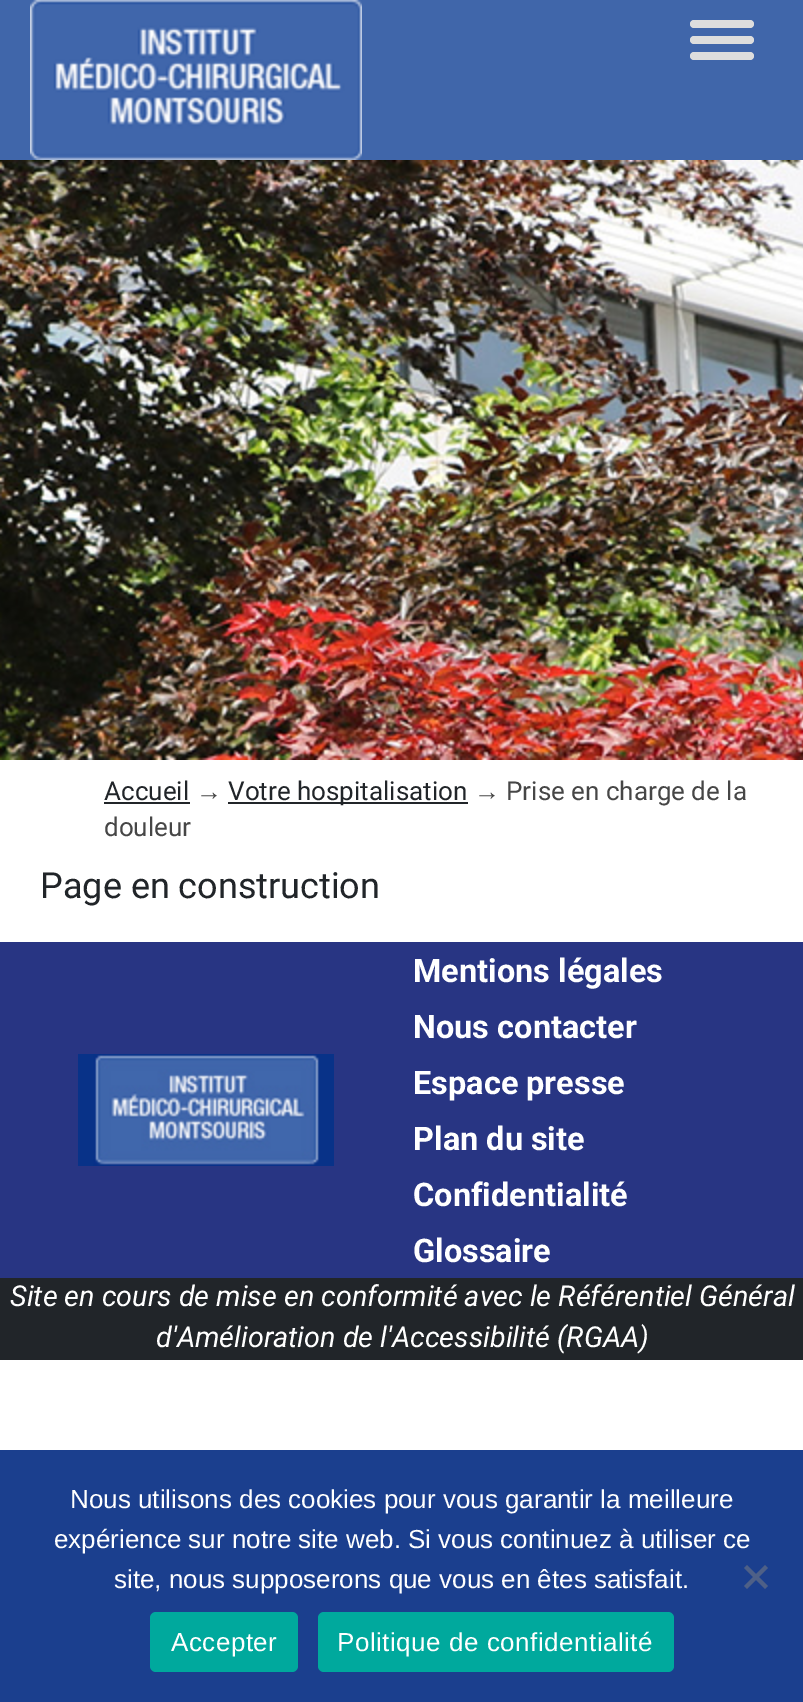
%!PS
<< /PageSize [803 1702] >> setpagedevice
/mt/moveto load def
/li/lineto load def
/cp/closepath load def
/fl/fill load def
/co { dup -16 bitshift 255 div exch dup -8 bitshift 255 and 255 div exch 255 and 255 div setrgbcolor } def
/fn { [ exch dup neg 0 0 3 -1 roll 0 0 ] selectfont } def
/tx { co fn moveto show } def
/bx { co rectfill } def
/rr { 5 dict begin { /r /h /w /y /x } { exch def } forall
  x r add y moveto x w add y 2 copy h add r arct x w add y h add x 1 index r arct
  x y h add x y r arct x y 2 copy exch w add exch r arct closepath end } def
/im { 5 dict begin { /h /w /y /x /name } { exch def } forall
  gsave x y translate w h scale
  w h 8 [w 0 0 h 0 0] name (r) file false 3 colorimage grestore end } def
0 1702 translate 1 -1 scale
4 setmiterlimit
0 0 803 1702 16#FFFFFF bx
0 0 803 160 16#4066AA bx
(media/1.raw) 30 0 332 160 im
16#DDDDDD co
690 20 64 8 4 rr fl
690 36 64 8 4 rr fl
690 52 64 8 4 rr fl
(media/2.raw) 0 160 803 600 im
104 802 86 2 16#212529 bx
228 802 240 2 16#212529 bx
0 942 803 336 16#283583 bx
(media/3.raw) 78 1054 256 112 im
0 1278 803 82 16#212529 bx
0 1450 803 252 16#1B3F8E bx
16#4E6087 co
765 1565 mt 768 1568 li 747 1589 li 744 1586 li cp fl
744 1568 mt 747 1565 li 768 1586 li 765 1589 li cp fl
16#00A99D co
150 1612 148 60 6 rr fl
318 1612 356 60 6 rr fl
(Accueil) 104 800 /Roboto-Regular 26 16#212529 tx
(→) 196 800 /LiberationSans-Regular 26 16#464646 tx
(Votre hospitalisation) 228 800 /Roboto-Regular 26 16#212529 tx
(→) 474 800 /LiberationSans-Regular 26 16#464646 tx
(Prise en charge de la) 506 800 /Roboto-Regular 26 16#464646 tx
(douleur) 104 836 /Roboto-Regular 26 16#464646 tx
(Page en construction) 40 898 /Roboto-Regular 36 16#212529 tx
(Mentions légales) 413 982 /Roboto-Bold 32.5 16#FFFFFF tx
(Nous contacter) 413 1038 /Roboto-Bold 32.5 16#FFFFFF tx
(Espace presse) 413 1094 /Roboto-Bold 32.5 16#FFFFFF tx
(Plan du site) 413 1150 /Roboto-Bold 32.5 16#FFFFFF tx
(Confidentialité) 413 1206 /Roboto-Bold 32.5 16#FFFFFF tx
(Glossaire) 413 1262 /Roboto-Bold 32.5 16#FFFFFF tx
(Site en cours de mise en conformité avec le Référentiel Général) 10 1306 /Roboto-Italic 28.8 16#FFFFFF tx
(d'Amélioration de l'Accessibilité \(RGAA\)) 156 1347 /Roboto-Italic 28.8 16#FFFFFF tx
(Nous utilisons des cookies pour vous garantir la meilleure) 70 1508 /LiberationSans-Regular 26 16#FFFFFF tx
(expérience sur notre site web. Si vous continuez à utiliser ce) 54 1548 /LiberationSans-Regular 26 16#FFFFFF tx
(site, nous supposerons que vous en êtes satisfait.) 114 1588 /LiberationSans-Regular 26 16#FFFFFF tx
171 1651 mt .5 0 (Accepter) ashow
337 1651 mt .5 0 (Politique de confidentialité) ashow
showpage
